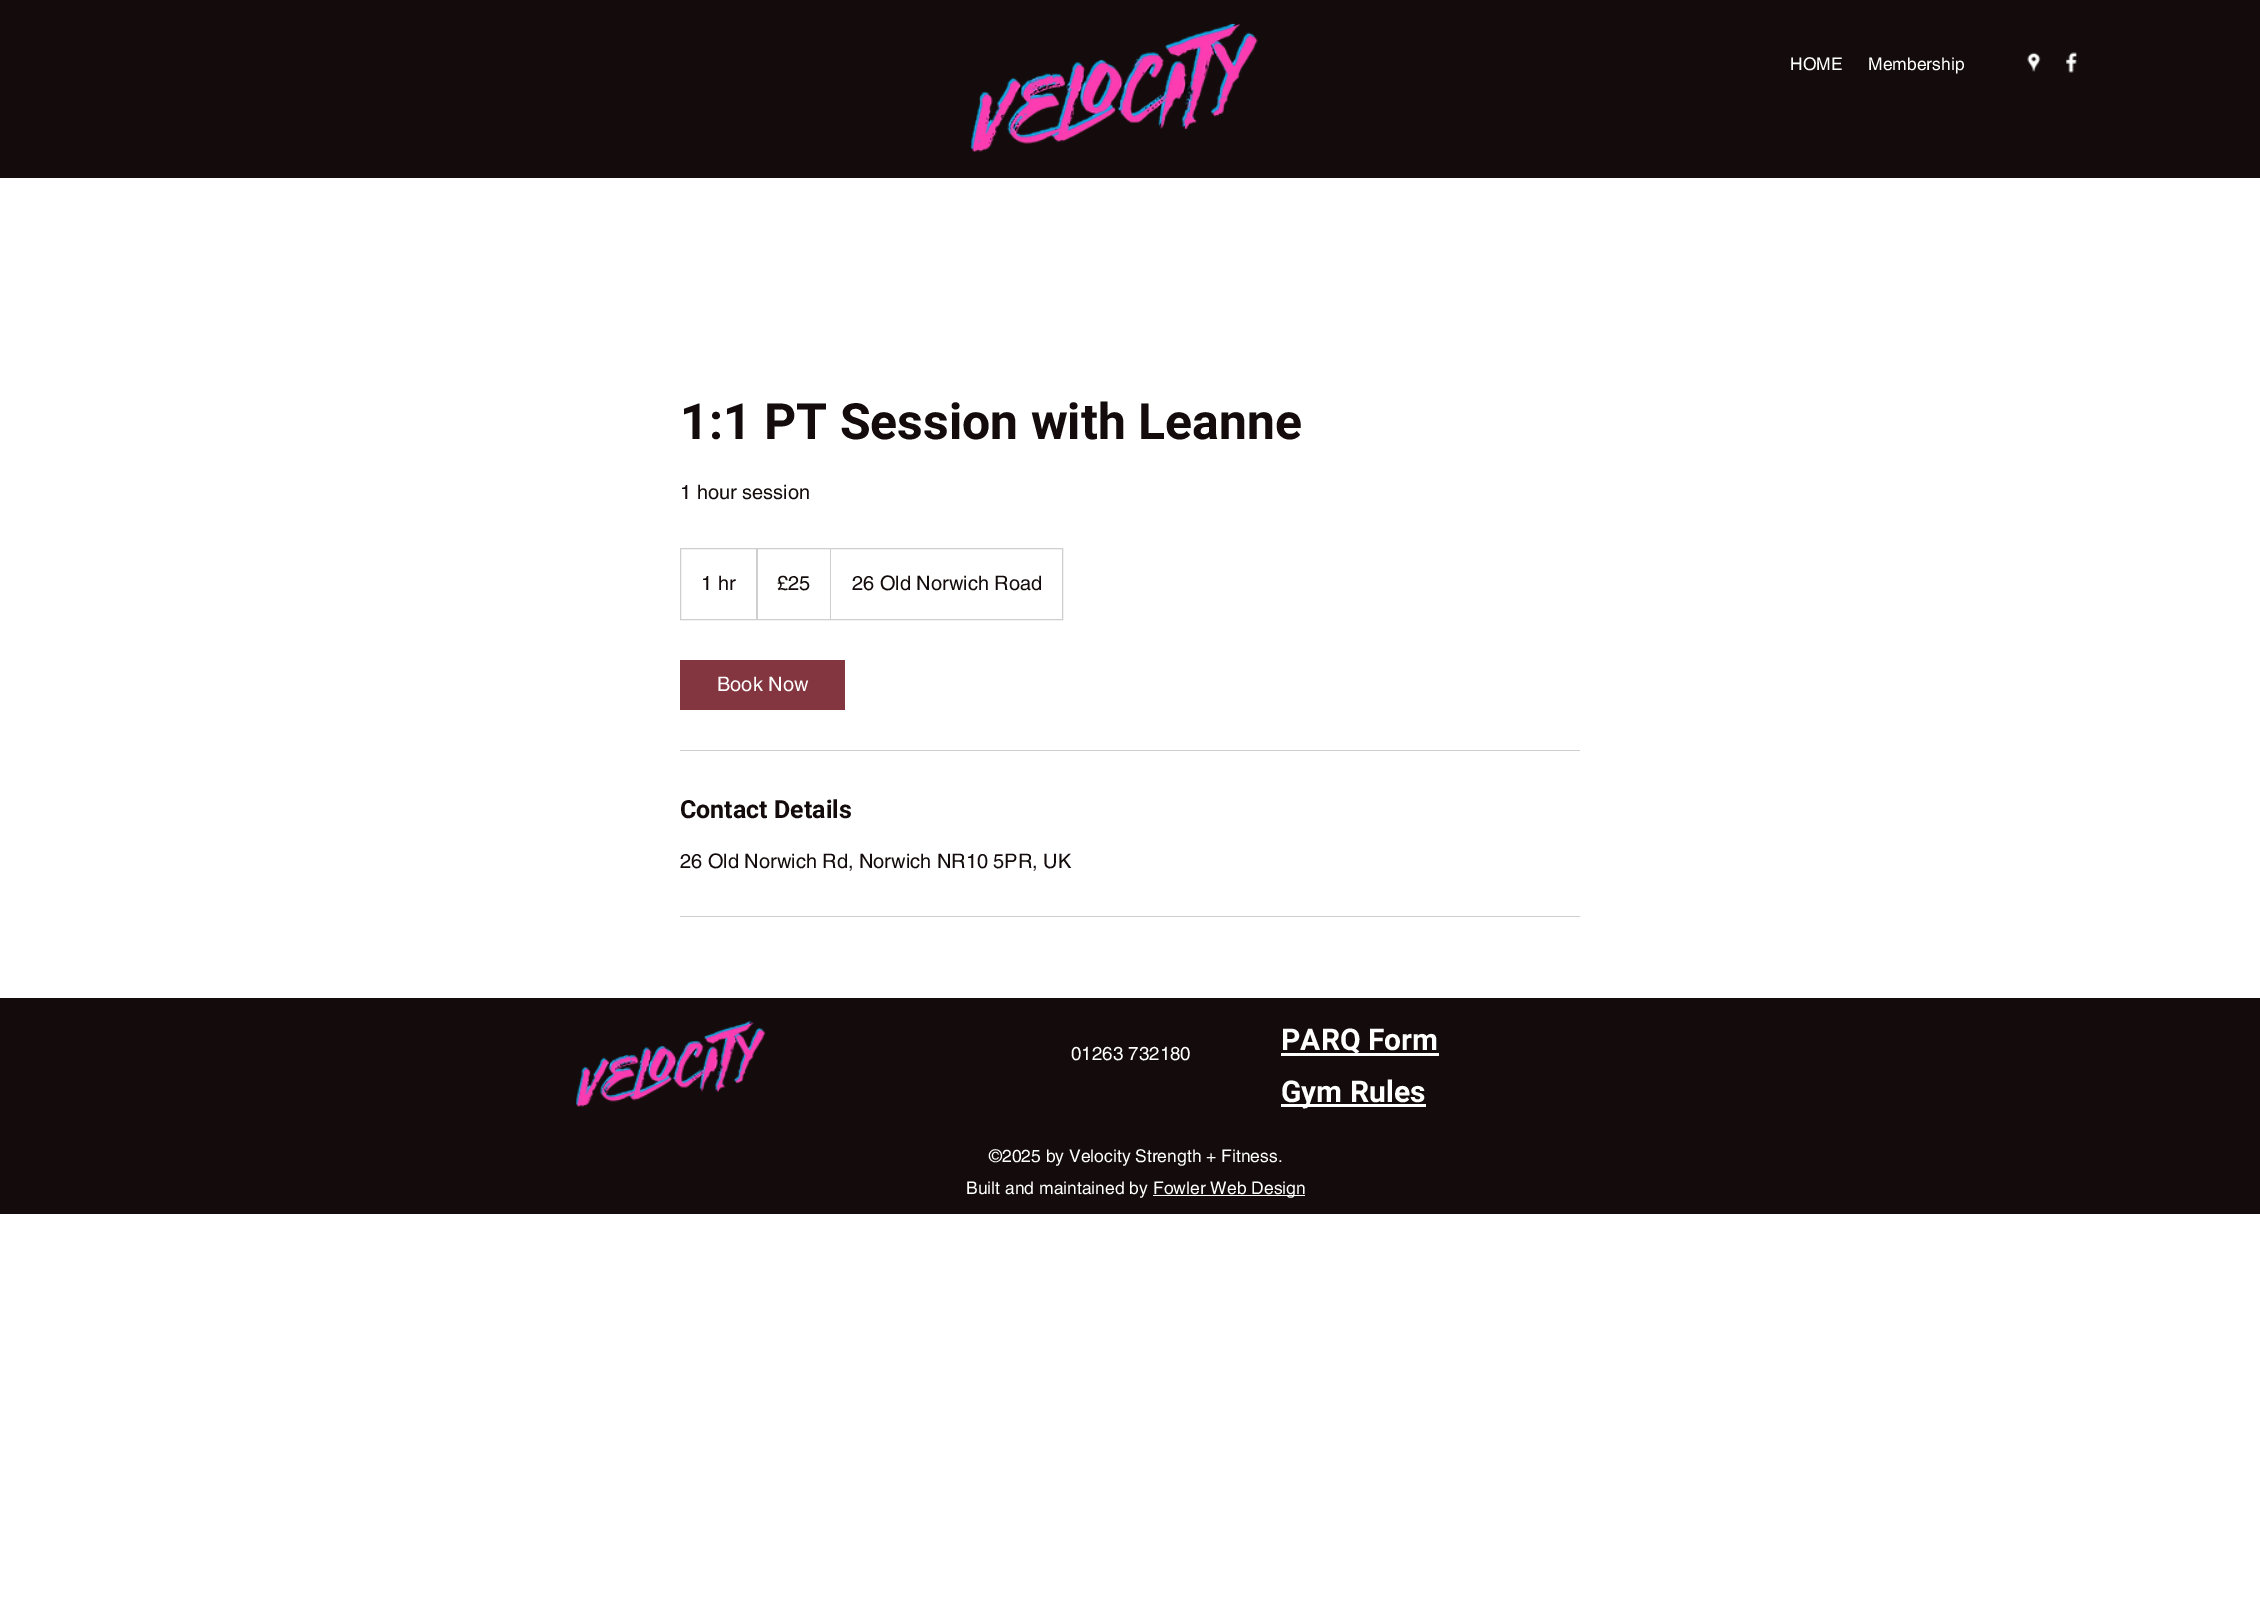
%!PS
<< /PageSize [2260 1618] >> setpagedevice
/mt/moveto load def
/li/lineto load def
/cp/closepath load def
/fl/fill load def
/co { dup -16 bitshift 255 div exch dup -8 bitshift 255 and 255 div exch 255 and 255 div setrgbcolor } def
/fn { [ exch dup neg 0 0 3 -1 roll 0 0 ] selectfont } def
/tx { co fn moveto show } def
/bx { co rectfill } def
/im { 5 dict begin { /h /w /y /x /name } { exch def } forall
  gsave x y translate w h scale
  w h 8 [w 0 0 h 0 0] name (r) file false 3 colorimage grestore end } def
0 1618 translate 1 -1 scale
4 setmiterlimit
0 0 2260 1618 16#FFFFFF bx
0 0 2260 178 16#140C0C bx
(media/1.raw) 970 23 288 130 im
(media/2.raw) 2027 52 14 20 im
(media/3.raw) 2066 52 11 21 im
16#D0CECE co
680.5 548.5 382 71 rectstroke
756 619 mt 756 548 li 758 549 li 758 619 li cp fl
830 619 mt 830 548 li 831 549 li 831 619 li cp fl
680 660 165 50 16#833540 bx
680 750 900 1 16#D0CECE bx
680 916 900 1 16#D0CECE bx
0 998 2260 216 16#140C0C bx
(media/4.raw) 575 1020 191 87 im
1281 1053 158 3 16#FFFFFF bx
1281 1104 145 3 16#FFFFFF bx
1153 1195 152 1 16#FFFFFF bx
(HOME) 1790 70 /helvetica-Regular 17.5 16#FFFFFF tx
(Membership) 1868 70 /helvetica-Regular 17.5 16#FFFFFF tx
(1:1 PT Session with Leanne) 680 439 /Roboto-Bold 50 16#140C0C tx
(1 hour session) 680 499 /helvetica-Regular 20 16#140C0C tx
(1 hr) 701 590 /helvetica-Regular 20 16#140C0C tx
(£25) 777 590 /helvetica-Regular 20 16#140C0C tx
(26 Old Norwich Road) 852 590 /helvetica-Regular 20 16#140C0C tx
(Book Now) 717 691 /helvetica-Regular 20 16#FFFFFF tx
(Contact Details) 680 818 /Roboto-Bold 25 16#140C0C tx
(26 Old Norwich Rd, Norwich NR10 5PR, UK) 680 868 /helvetica-Regular 20 16#140C0C tx
(01263 732180) 1071 1060 /helvetica-Regular 18.75 16#FFFFFF tx
(PARQ Form) 1281 1050 /Roboto-Bold 30 16#FFFFFF tx
(Gym Rules) 1281 1102 /Roboto-Bold 30 16#FFFFFF tx
(©2025 by Velocity Strength + Fitness.) 989 1162 /helvetica-Regular 17.5 16#FFFFFF tx
(Built and maintained by) 966 1194 /helvetica-Regular 17.5 16#FFFFFF tx
(Fowler Web Design) 1153 1194 /helvetica-Regular 17.5 16#FFFFFF tx
showpage
